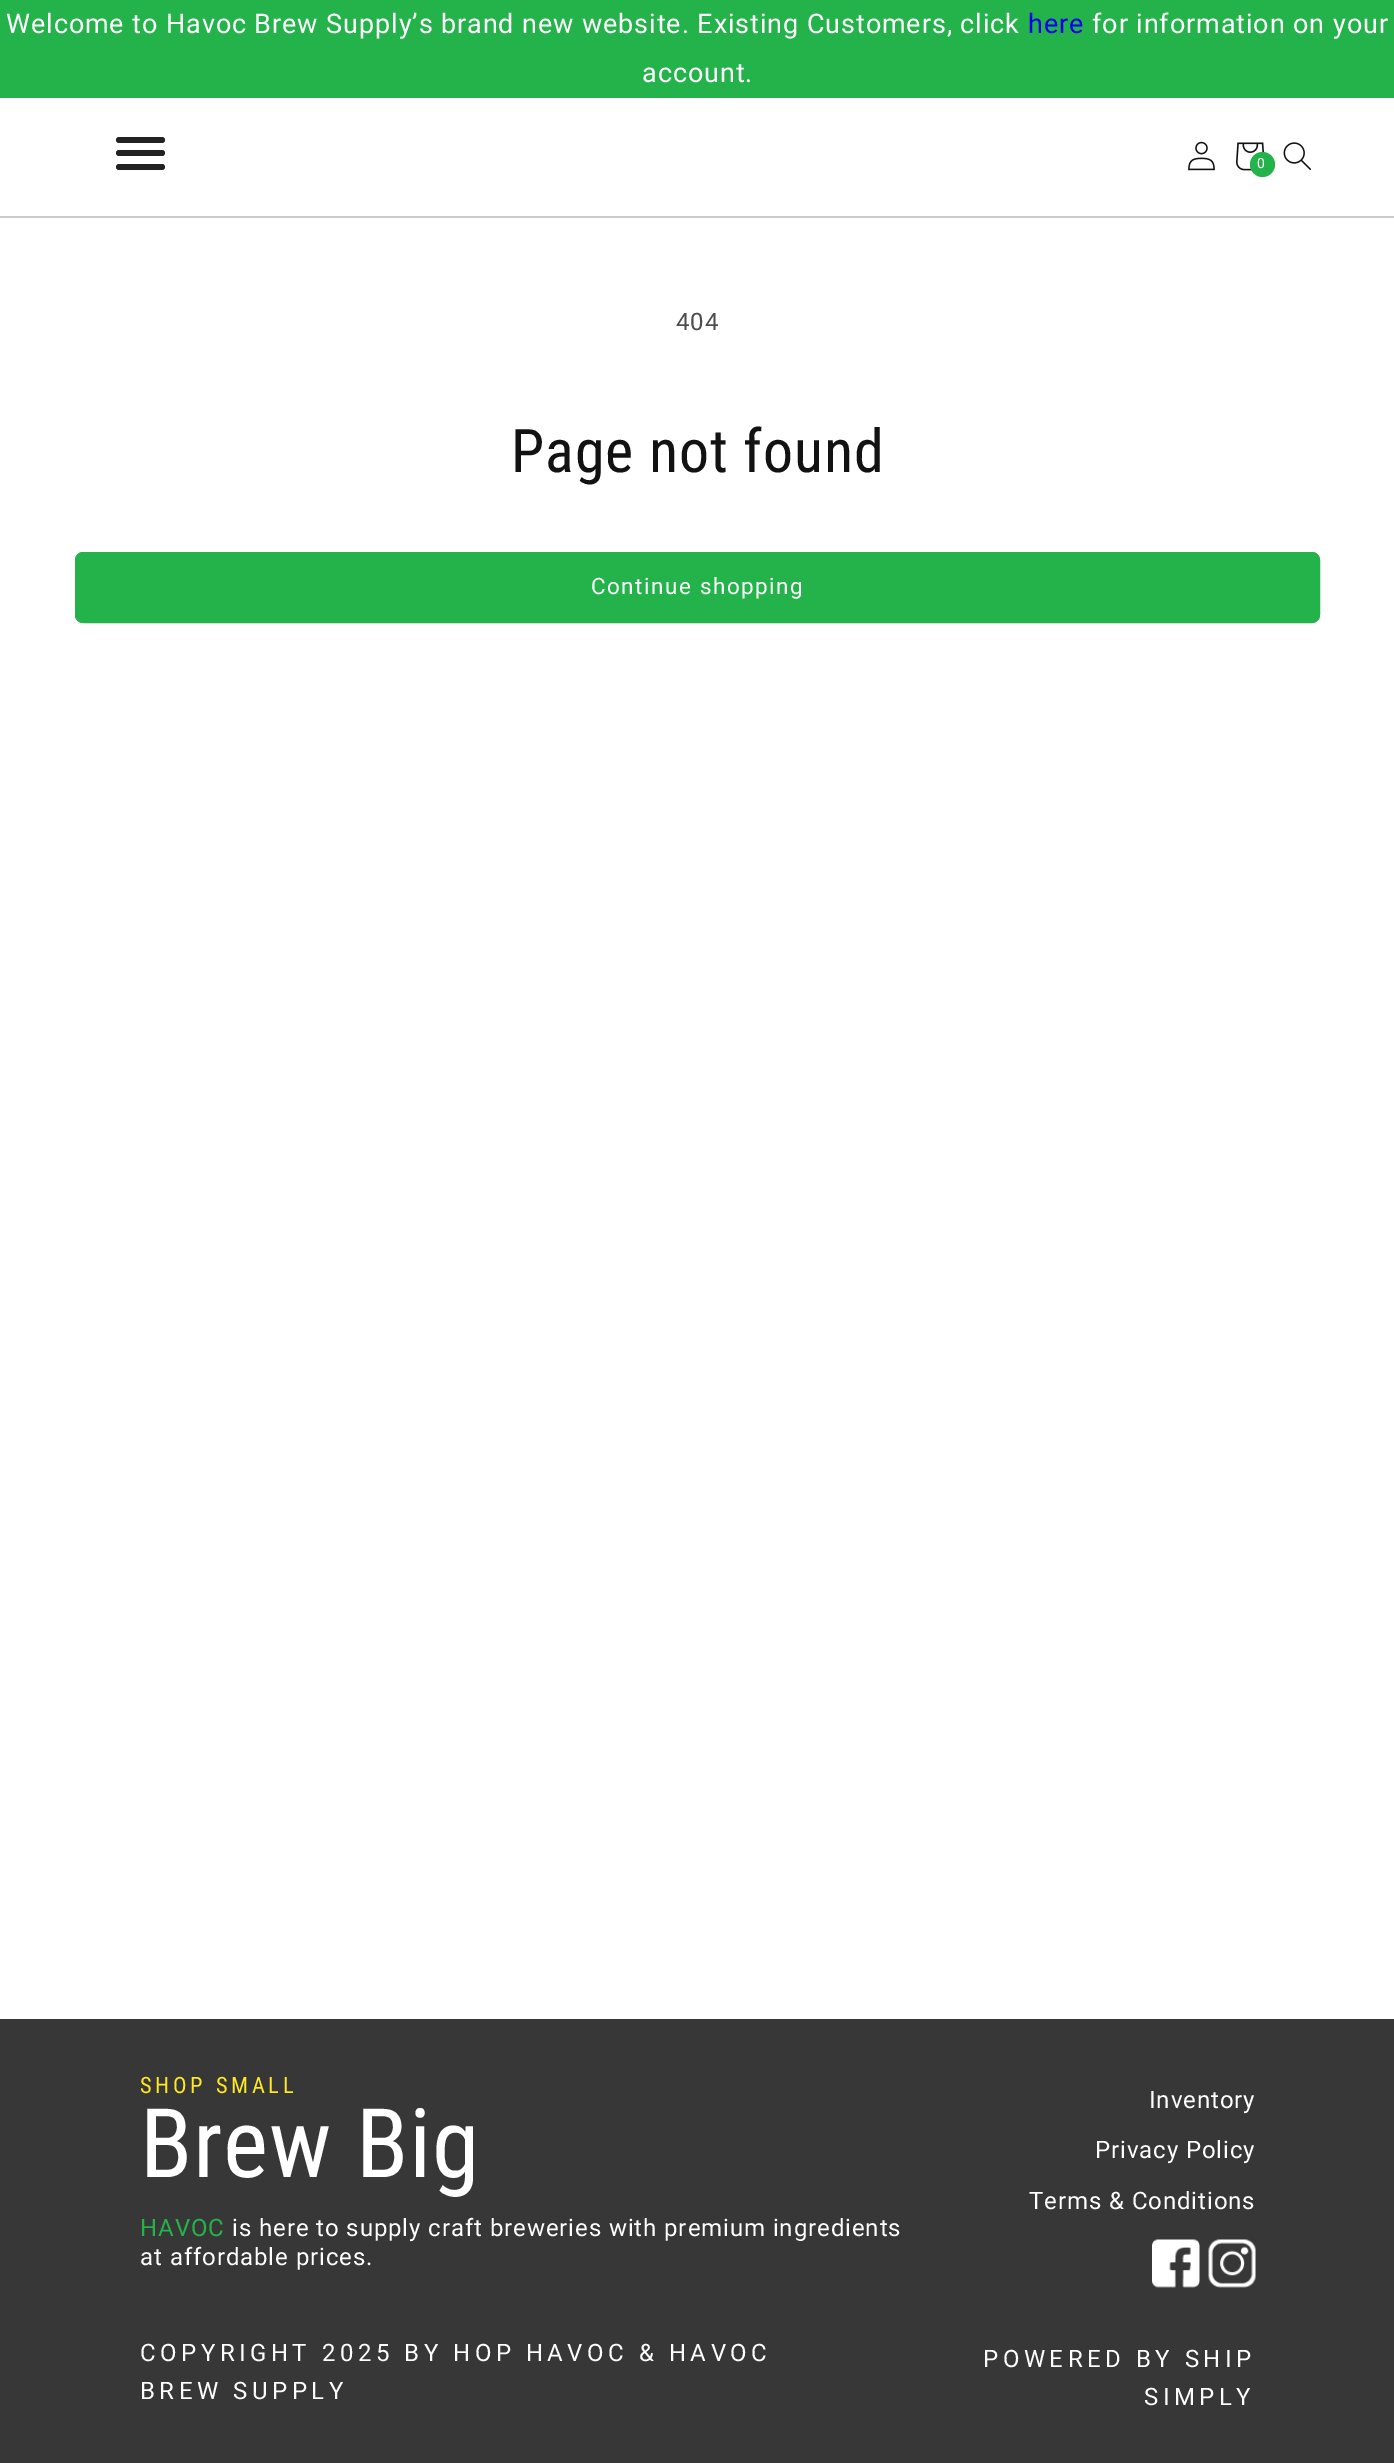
%!PS
<< /PageSize [1394 2463] >> setpagedevice
/mt/moveto load def
/fl/fill load def
/st/stroke load def
/lw/setlinewidth load def
/co { dup -16 bitshift 255 div exch dup -8 bitshift 255 and 255 div exch 255 and 255 div setrgbcolor } def
/fn { [ exch dup neg 0 0 3 -1 roll 0 0 ] selectfont } def
/bx { co rectfill } def
/ci { newpath 0 360 arc closepath } def
/rr { 5 dict begin { /r /h /w /y /x } { exch def } forall
  x r add y moveto x w add y 2 copy h add r arct x w add y h add x 1 index r arct
  x y h add x y r arct x y 2 copy exch w add exch r arct closepath end } def
/im { 5 dict begin { /h /w /y /x /name } { exch def } forall
  gsave x y translate w h scale
  w h 8 [w 0 0 h 0 0] name (r) file false 3 colorimage grestore end } def
0 2463 translate 1 -1 scale
4 setmiterlimit
0 0 1394 2463 16#FFFFFF bx
0 0 1394 98 16#24B34B bx
0 216 1394 2 16#CCCCCC bx
16#222222 co
116 137 49 6 3 rr fl
116 150 49 6 3 rr fl
116 164 49 6 3 rr fl
(media/1.raw) 1188 141 27 30 im
(media/2.raw) 1236 142 29 29 im
16#24B34B co
1262.5 164.5 12.5 ci fl
(media/3.raw) 1283 142 28 28 im
75 552 1245 71 8 rr fl
2 lw
76 553 1243 69 8 rr st
0 2019 1394 444 16#383738 bx
(media/4.raw) 1152 2239 48 49 im
(media/5.raw) 1208 2239 48 49 im
/Roboto-Regular 27 fn
16#FFFFFF co
6 33 mt .9 0 (Welcome to Havoc Brew Supply’s brand new website. Existing Customers, click) ashow
16#0000EE co
1028 33 mt .9 0 (here) ashow
16#FFFFFF co
1092 33 mt .9 0 (for information on your) ashow
642 82 mt .9 0 (account.) ashow
/Roboto-Regular 14 fn
1257 168 mt .9 0 (0) ashow
/Roboto-Regular 24 fn
16#4D4D4D co
676 330 mt .9 0 (404) ashow
/RobotoCondensed-Regular 60 fn
16#121212 co
511 472 mt .9 0 (Page not found) ashow
/Roboto-Regular 22.5 fn
16#FFFFFF co
591 594 mt 1.5 0 (Continue shopping) ashow
/RobotoCondensed-Regular 22.5 fn
16#FFE923 co
140 2093 mt 3.75 0 (SHOP SMALL) ashow
/RobotoCondensed-Regular 96 fn
16#FFFFFF co
140 2177 mt .9 0 (Brew Big) ashow
/Roboto-Regular 24 fn
16#24B34B co
140 2236 mt .9 0 (HAVOC) ashow
16#FFFFFF co
232 2236 mt .9 0 (is here to supply craft breweries with premium ingredients) ashow
140 2265 mt .9 0 (at affordable prices.) ashow
1149 2108 mt .9 0 (Inventory) ashow
1095 2158 mt .9 0 (Privacy Policy) ashow
1029 2209 mt .9 0 (Terms & Conditions) ashow
140 2361 mt 4.5 0 (COPYRIGHT 2025 BY HOP HAVOC & HAVOC) ashow
140 2399 mt 4.5 0 (BREW SUPPLY) ashow
983 2367 mt 4.5 0 (POWERED BY SHIP) ashow
1144 2405 mt 4.5 0 (SIMPLY) ashow
showpage
